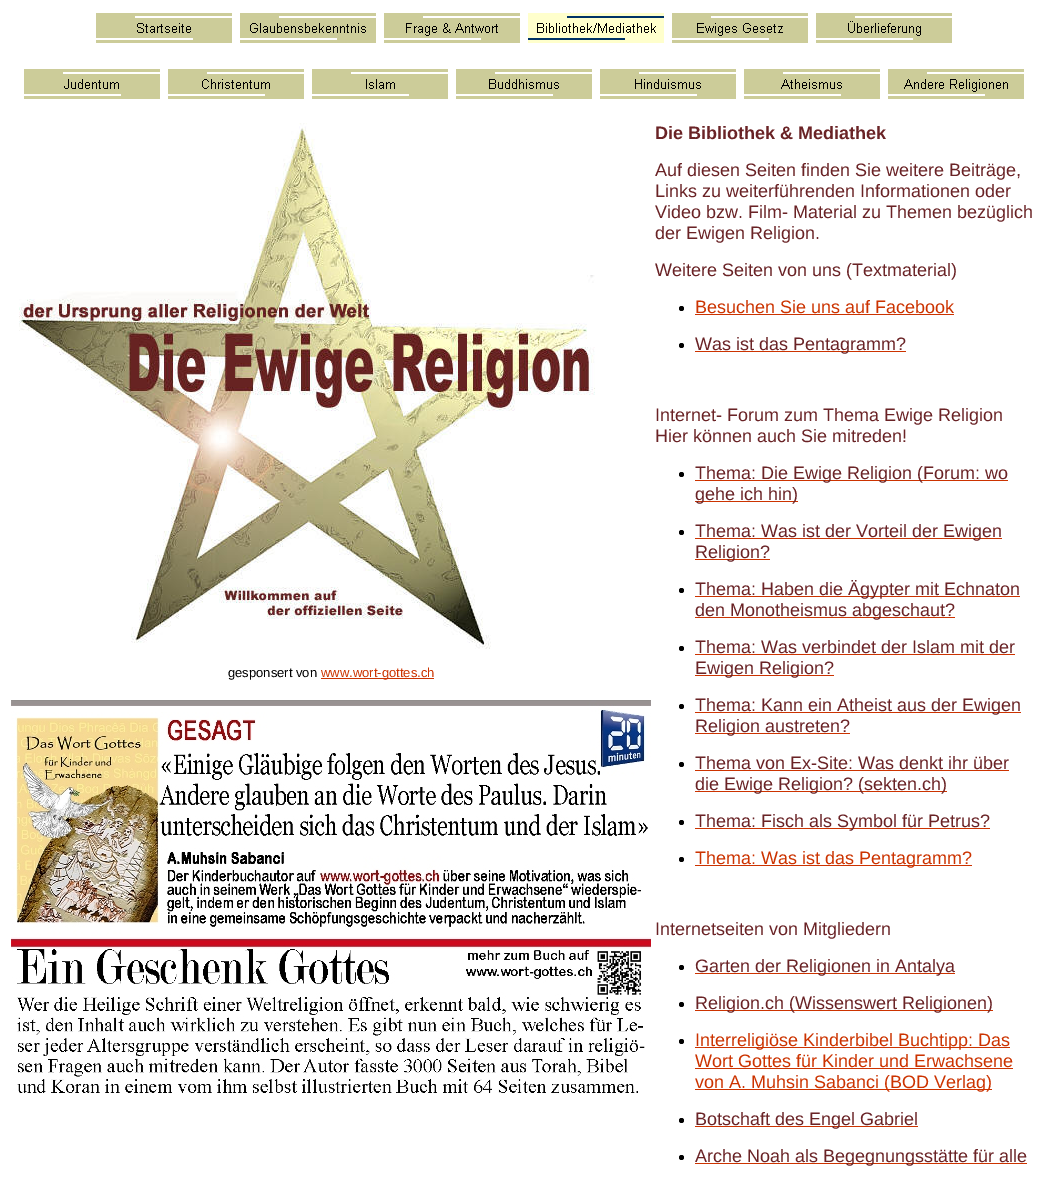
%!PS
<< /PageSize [1047 1177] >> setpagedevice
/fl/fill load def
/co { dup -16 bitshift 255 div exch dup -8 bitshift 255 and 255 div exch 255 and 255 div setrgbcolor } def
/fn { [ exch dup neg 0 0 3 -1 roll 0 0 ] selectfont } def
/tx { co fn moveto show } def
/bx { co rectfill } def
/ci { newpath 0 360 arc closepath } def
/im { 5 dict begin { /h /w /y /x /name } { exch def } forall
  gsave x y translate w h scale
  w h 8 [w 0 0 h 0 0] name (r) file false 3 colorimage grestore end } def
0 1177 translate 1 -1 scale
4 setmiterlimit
0 0 1047 1177 16#FFFFFF bx
(media/1.raw) 96 13 136 30 im
(media/2.raw) 240 13 136 30 im
(media/3.raw) 384 13 136 30 im
(media/4.raw) 528 13 136 30 im
(media/5.raw) 672 13 136 30 im
(media/6.raw) 816 13 136 30 im
(media/7.raw) 24 69 136 30 im
(media/8.raw) 168 69 136 30 im
(media/9.raw) 312 69 136 30 im
(media/10.raw) 456 69 136 30 im
(media/11.raw) 600 69 136 30 im
(media/12.raw) 744 69 136 30 im
(media/13.raw) 888 69 136 30 im
(media/14.raw) 19 123 576 526 im
321 678 113 1 16#CC3300 bx
(media/15.raw) 11 700 640 393 im
16#000000 co
681.5 308.5 2.5 ci fl
695 314 259 1 16#CC3300 bx
16#000000 co
681.5 345.5 2.5 ci fl
695 351 211 1 16#CC3300 bx
16#000000 co
681.5 474.5 2.5 ci fl
695 480 313 1 16#CC3300 bx
695 501 103 1 16#CC3300 bx
16#000000 co
681.5 532.5 2.5 ci fl
695 538 307 1 16#CC3300 bx
695 559 75 1 16#CC3300 bx
16#000000 co
681.5 590.5 2.5 ci fl
695 596 325 1 16#CC3300 bx
695 617 260 1 16#CC3300 bx
16#000000 co
681.5 648.5 2.5 ci fl
695 654 320 1 16#CC3300 bx
695 675 139 1 16#CC3300 bx
16#000000 co
681.5 706.5 2.5 ci fl
695 712 326 1 16#CC3300 bx
695 733 155 1 16#CC3300 bx
16#000000 co
681.5 764.5 2.5 ci fl
695 770 314 1 16#CC3300 bx
695 791 252 1 16#CC3300 bx
16#000000 co
681.5 822.5 2.5 ci fl
695 828 295 1 16#CC3300 bx
16#000000 co
681.5 859.5 2.5 ci fl
695 865 277 1 16#CC3300 bx
16#000000 co
681.5 967.5 2.5 ci fl
695 973 260 1 16#CC3300 bx
16#000000 co
681.5 1004.5 2.5 ci fl
695 1010 298 1 16#CC3300 bx
16#000000 co
681.5 1041.5 2.5 ci fl
695 1047 315 1 16#CC3300 bx
695 1068 318 1 16#CC3300 bx
695 1089 297 1 16#CC3300 bx
16#000000 co
681.5 1120.5 2.5 ci fl
695 1126 223 1 16#CC3300 bx
16#000000 co
681.5 1157.5 2.5 ci fl
695 1163 332 1 16#CC3300 bx
(gesponsert von) 228 677 /LiberationSans-Regular 13 16#000000 tx
(www.wort-gottes.ch) 321 677 /LiberationSans-Regular 13 16#CC3300 tx
(Die Bibliothek & Mediathek) 655 139 /LiberationSans-Bold 18 16#6A2326 tx
(Auf diesen Seiten finden Sie weitere Beiträge,) 655 176 /LiberationSans-Regular 18 16#6A2326 tx
(Links zu weiterführenden Informationen oder) 655 197 /LiberationSans-Regular 18 16#6A2326 tx
(Video bzw. Film- Material zu Themen bezüglich) 655 218 /LiberationSans-Regular 18 16#6A2326 tx
(der Ewigen Religion.) 655 239 /LiberationSans-Regular 18 16#6A2326 tx
(Weitere Seiten von uns \(Textmaterial\)) 655 276 /LiberationSans-Regular 18 16#6A2326 tx
(Besuchen Sie uns auf Facebook) 695 313 /LiberationSans-Regular 18 16#CC3300 tx
(Was ist das Pentagramm?) 695 350 /LiberationSans-Regular 18 16#6A2326 tx
(Internet- Forum zum Thema Ewige Religion) 655 421 /LiberationSans-Regular 18 16#6A2326 tx
(Hier können auch Sie mitreden!) 655 442 /LiberationSans-Regular 18 16#6A2326 tx
(Thema: Die Ewige Religion \(Forum: wo) 695 479 /LiberationSans-Regular 18 16#6A2326 tx
(gehe ich hin\)) 695 500 /LiberationSans-Regular 18 16#6A2326 tx
(Thema: Was ist der Vorteil der Ewigen) 695 537 /LiberationSans-Regular 18 16#6A2326 tx
(Religion?) 695 558 /LiberationSans-Regular 18 16#6A2326 tx
(Thema: Haben die Ägypter mit Echnaton) 695 595 /LiberationSans-Regular 18 16#6A2326 tx
(den Monotheismus abgeschaut?) 695 616 /LiberationSans-Regular 18 16#6A2326 tx
(Thema: Was verbindet der Islam mit der) 695 653 /LiberationSans-Regular 18 16#6A2326 tx
(Ewigen Religion?) 695 674 /LiberationSans-Regular 18 16#6A2326 tx
(Thema: Kann ein Atheist aus der Ewigen) 695 711 /LiberationSans-Regular 18 16#6A2326 tx
(Religion austreten?) 695 732 /LiberationSans-Regular 18 16#6A2326 tx
(Thema von Ex-Site: Was denkt ihr über) 695 769 /LiberationSans-Regular 18 16#6A2326 tx
(die Ewige Religion? \(sekten.ch\)) 695 790 /LiberationSans-Regular 18 16#6A2326 tx
(Thema: Fisch als Symbol für Petrus?) 695 827 /LiberationSans-Regular 18 16#6A2326 tx
(Thema: Was ist das Pentagramm?) 695 864 /LiberationSans-Regular 18 16#CC3300 tx
(Internetseiten von Mitgliedern) 655 935 /LiberationSans-Regular 18 16#6A2326 tx
(Garten der Religionen in Antalya) 695 972 /LiberationSans-Regular 18 16#6A2326 tx
(Religion.ch \(Wissenswert Religionen\)) 695 1009 /LiberationSans-Regular 18 16#6A2326 tx
(Interreligiöse Kinderbibel Buchtipp: Das) 695 1046 /LiberationSans-Regular 18 16#CC3300 tx
(Wort Gottes für Kinder und Erwachsene) 695 1067 /LiberationSans-Regular 18 16#CC3300 tx
(von A. Muhsin Sabanci \(BOD Verlag\)) 695 1088 /LiberationSans-Regular 18 16#CC3300 tx
(Botschaft des Engel Gabriel) 695 1125 /LiberationSans-Regular 18 16#6A2326 tx
(Arche Noah als Begegnungsstätte für alle) 695 1162 /LiberationSans-Regular 18 16#6A2326 tx
showpage
